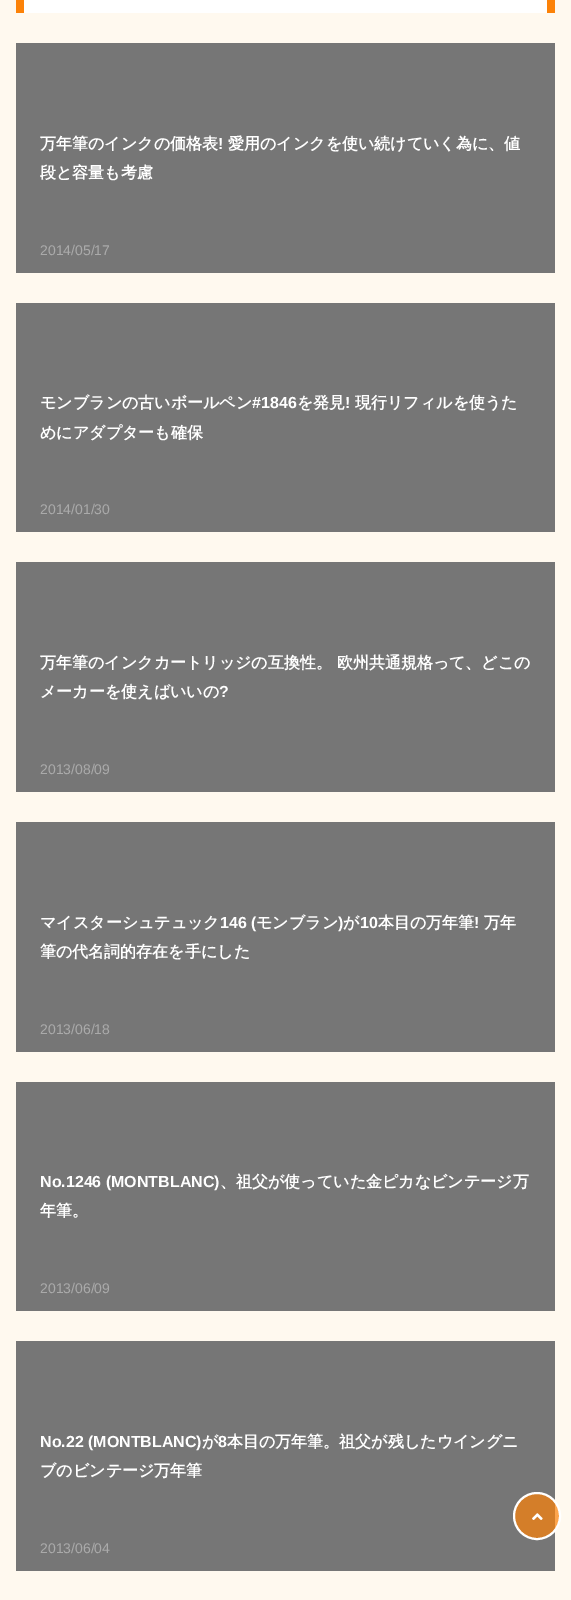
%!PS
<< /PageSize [571 1600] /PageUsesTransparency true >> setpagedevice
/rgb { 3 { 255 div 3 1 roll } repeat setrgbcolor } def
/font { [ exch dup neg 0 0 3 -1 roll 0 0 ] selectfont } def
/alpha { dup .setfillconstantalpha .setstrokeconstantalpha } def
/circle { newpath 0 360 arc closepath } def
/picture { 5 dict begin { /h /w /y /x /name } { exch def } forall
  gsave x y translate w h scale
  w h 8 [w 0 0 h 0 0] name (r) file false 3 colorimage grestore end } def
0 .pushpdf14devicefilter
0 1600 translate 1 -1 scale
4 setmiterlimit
255 249 239 rgb
0 0 571 1600 rectfill
[
  [24 0 523 13 255 255 255]
  [547 0 8 13 252 130 8]
  [16 0 8 13 252 130 8]
  [16 43 539 230 118 118 118]
  [16 303 539 229 118 118 118]
  [16 562 539 230 118 118 118]
  [16 822 539 230 118 118 118]
  [16 1082 539 229 118 118 118]
  [16 1341 539 230 118 118 118]
] { aload pop rgb rectfill } forall
0.7 alpha
252 130 8 rgb
537 1516 23 circle fill
1 alpha
255 255 255 rgb
2 setlinewidth
537 1516 23 circle stroke
(img/1.rgb) 532 1513 11 7 picture
/WenQuanYiZenHei-Bold 16 font
40 149 moveto (万年筆のインクの価格表) show
/LiberationSans-Bold 16 font
218 149 moveto (!) show
/WenQuanYiZenHei-Bold 16 font
228 149 moveto (愛用のインクを使い続けていく為に、値) show
40 178 moveto (段と容量も考慮) show
/LiberationSans-Regular 14 font
170 170 170 rgb
40 255 moveto (2014/05/17) show
/WenQuanYiZenHei-Bold 16 font
255 255 255 rgb
40 408 moveto (モンブランの古いボールペン) show
/LiberationSans-Bold 16 font
252 408 moveto (#1846) show
/WenQuanYiZenHei-Bold 16 font
297 408 moveto (を発見) show
/LiberationSans-Bold 16 font
345 408 moveto (!) show
/WenQuanYiZenHei-Bold 16 font
355 408 moveto (現行リフィルを使うた) show
40 438 moveto (めにアダプターも確保) show
/LiberationSans-Regular 14 font
170 170 170 rgb
40 514 moveto (2014/01/30) show
/WenQuanYiZenHei-Bold 16 font
255 255 255 rgb
40 668 moveto (万年筆のインクカートリッジの互換性。 欧州共通規格って、どこの) show
40 697 moveto (メーカーを使えばいいの) show
/LiberationSans-Bold 16 font
219 697 moveto (?) show
/LiberationSans-Regular 14 font
170 170 170 rgb
40 774 moveto (2013/08/09) show
/WenQuanYiZenHei-Bold 16 font
255 255 255 rgb
40 928 moveto (マイスターシュテュック) show
/LiberationSans-Bold 16 font
220 928 moveto (146 \() show
/WenQuanYiZenHei-Bold 16 font
256 928 moveto (モンブラン) show
/LiberationSans-Bold 16 font
338 928 moveto (\)) show
/WenQuanYiZenHei-Bold 16 font
343 928 moveto (が) show
/LiberationSans-Bold 16 font
360 928 moveto (10) show
/WenQuanYiZenHei-Bold 16 font
378 928 moveto (本目の万年筆) show
/LiberationSans-Bold 16 font
474 928 moveto (!) show
/WenQuanYiZenHei-Bold 16 font
484 928 moveto (万年) show
40 957 moveto (筆の代名詞的存在を手にした) show
/LiberationSans-Regular 14 font
170 170 170 rgb
40 1034 moveto (2013/06/18) show
/LiberationSans-Bold 16 font
255 255 255 rgb
40 1187 moveto (No.1246 \(MONTBLANC\)) show
/WenQuanYiZenHei-Bold 16 font
220 1187 moveto (、祖父が使っていた金ピカなビンテージ万) show
40 1216 moveto (年筆。) show
/LiberationSans-Regular 14 font
170 170 170 rgb
40 1293 moveto (2013/06/09) show
/LiberationSans-Bold 16 font
255 255 255 rgb
40 1447 moveto (No.22 \(MONTBLANC\)) show
/WenQuanYiZenHei-Bold 16 font
202 1447 moveto (が) show
/LiberationSans-Bold 16 font
218 1447 moveto (8) show
/WenQuanYiZenHei-Bold 16 font
227 1447 moveto (本目の万年筆。祖父が残したウイングニ) show
40 1476 moveto (ブのビンテージ万年筆) show
/LiberationSans-Regular 14 font
170 170 170 rgb
40 1553 moveto (2013/06/04) show
.poppdf14devicefilter showpage
